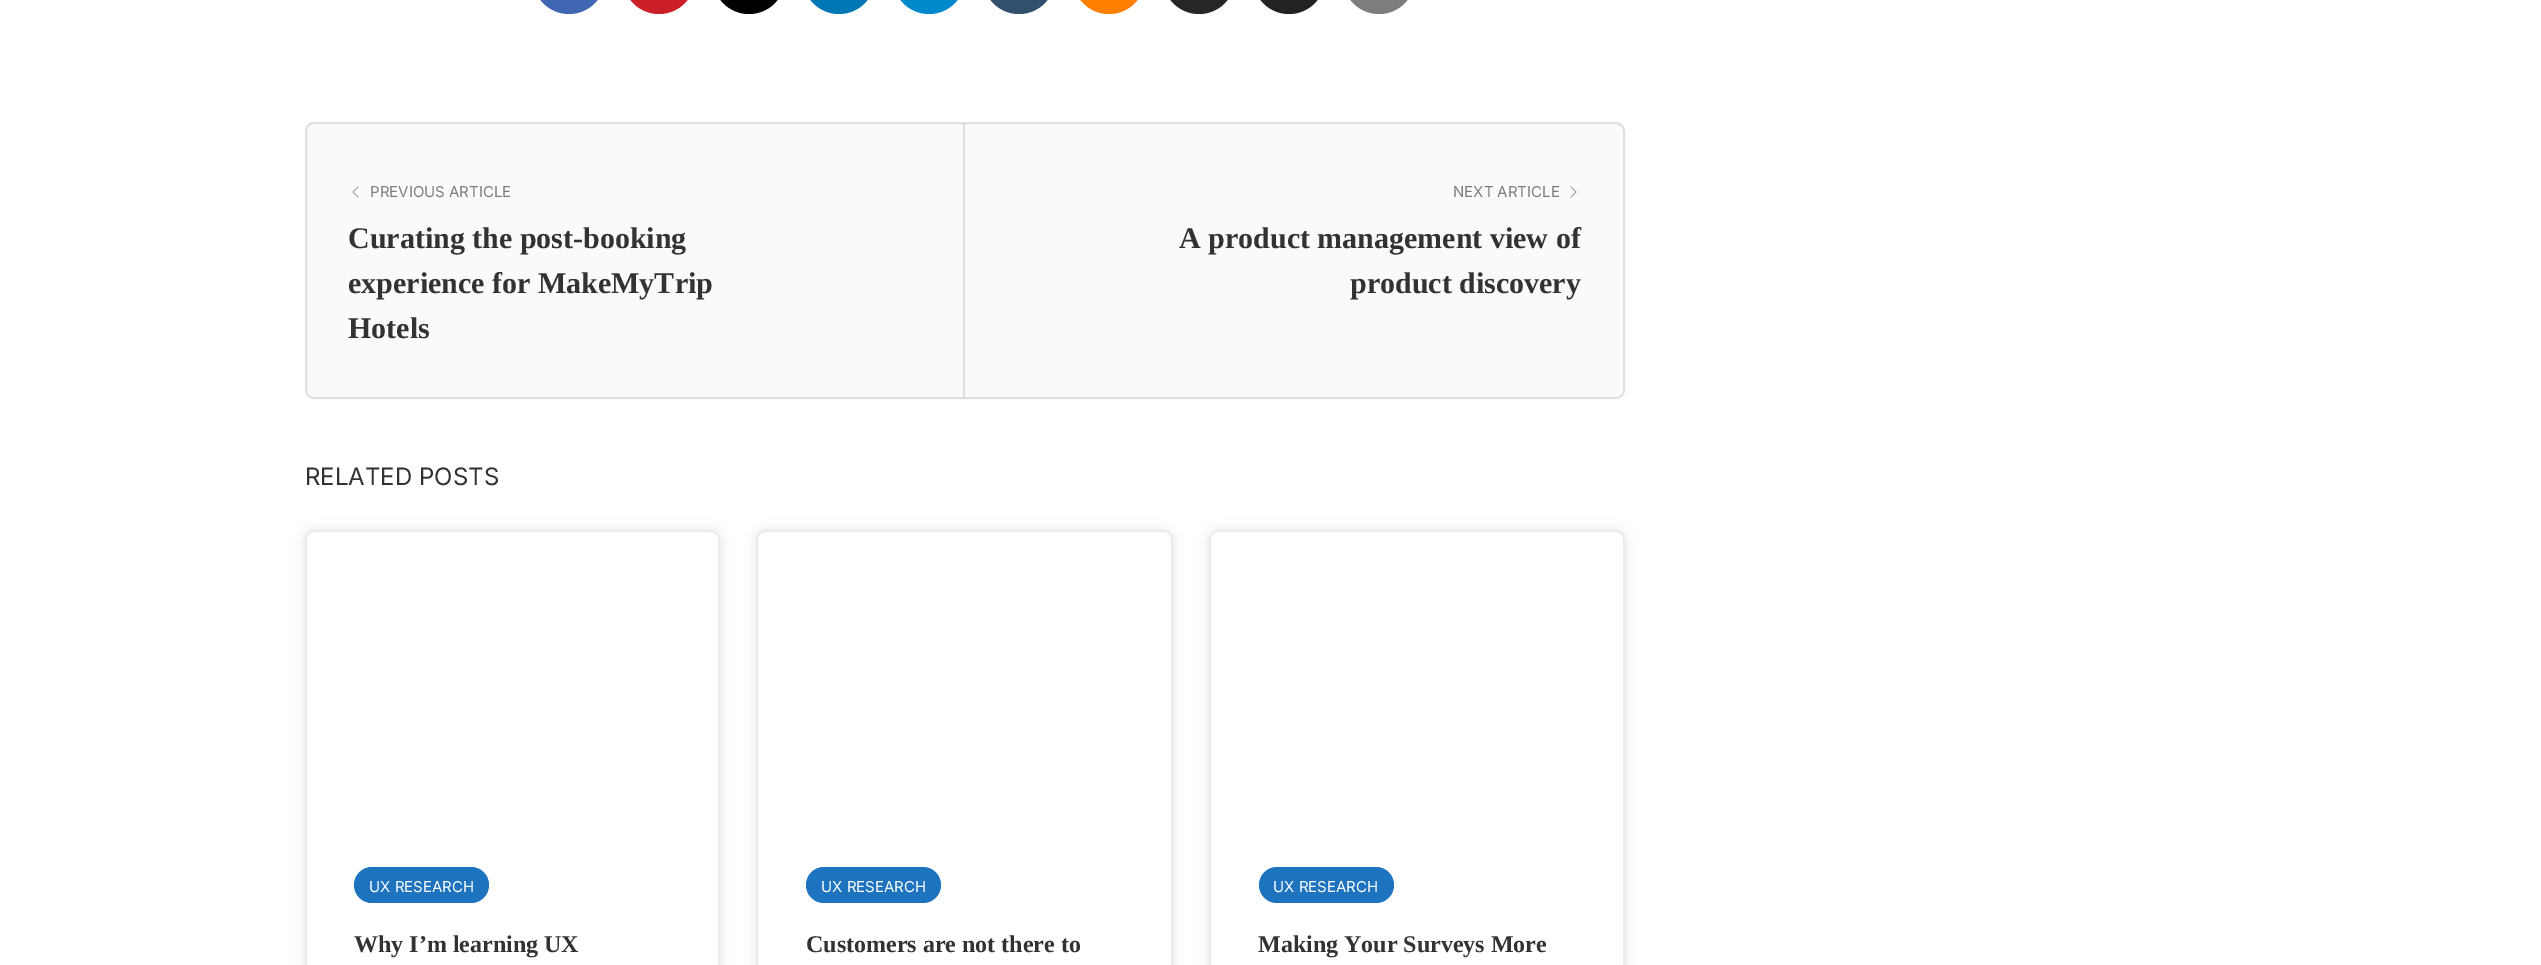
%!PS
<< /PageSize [2541 965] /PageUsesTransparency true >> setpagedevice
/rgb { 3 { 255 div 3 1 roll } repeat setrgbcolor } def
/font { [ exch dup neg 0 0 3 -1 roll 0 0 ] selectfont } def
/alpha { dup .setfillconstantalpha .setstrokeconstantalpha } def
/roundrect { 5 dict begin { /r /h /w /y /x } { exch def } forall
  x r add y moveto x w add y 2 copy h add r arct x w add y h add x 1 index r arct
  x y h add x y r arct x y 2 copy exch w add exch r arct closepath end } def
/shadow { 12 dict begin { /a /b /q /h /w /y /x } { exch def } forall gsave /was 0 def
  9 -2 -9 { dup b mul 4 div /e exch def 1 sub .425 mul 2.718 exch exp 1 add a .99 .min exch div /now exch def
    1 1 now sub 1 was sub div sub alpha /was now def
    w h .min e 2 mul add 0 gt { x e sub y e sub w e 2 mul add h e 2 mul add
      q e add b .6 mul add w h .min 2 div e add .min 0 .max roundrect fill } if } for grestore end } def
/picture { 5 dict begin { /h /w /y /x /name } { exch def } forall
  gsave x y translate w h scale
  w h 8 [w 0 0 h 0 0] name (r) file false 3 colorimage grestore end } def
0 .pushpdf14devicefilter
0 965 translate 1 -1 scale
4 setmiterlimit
255 255 255 rgb
0 0 2541 965 rectfill
66 103 178 rgb
533 -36 72 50 36 roundrect fill
203 32 39 rgb
623 -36 72 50 36 roundrect fill
0 0 0 rgb
713 -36 72 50 36 roundrect fill
0 119 181 rgb
803 -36 72 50 36 roundrect fill
0 136 204 rgb
893 -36 72 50 36 roundrect fill
50 80 109 rgb
983 -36 72 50 36 roundrect fill
255 128 0 rgb
1073 -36 72 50 36 roundrect fill
38 38 38 rgb
1163 -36 72 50 36 roundrect fill
34 34 34 rgb
1253 -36 72 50 36 roundrect fill
125 125 125 rgb
1343 -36 72 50 36 roundrect fill
250 250 250 rgb
306 123 1318 275 8 roundrect gsave fill grestore
225 225 225 rgb
2 setlinewidth
stroke
0.1 alpha
0 0 0 rgb
963 123 2 275 rectfill
1 alpha
(img/1.rgb) 352 186 7 12 picture
(img/2.rgb) 1570 186 7 12 picture
gsave
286 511 moveto 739 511 lineto 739 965 lineto 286 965 lineto closepath 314 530 moveto 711 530 lineto 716 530 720 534 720 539 curveto 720 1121 lineto 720 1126 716 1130 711 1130 curveto 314 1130 lineto 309 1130 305 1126 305 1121 curveto 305 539 lineto 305 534 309 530 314 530 curveto closepath eoclip newpath
17 17 26 rgb
305 530 415 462 9 6 0.1 shadow
grestore
236 236 236 rgb
306 531 413 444 8 roundrect stroke
30 115 190 rgb
354 867 135 36 18 roundrect fill
gsave
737 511 moveto 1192 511 lineto 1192 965 lineto 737 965 lineto closepath 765 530 moveto 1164 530 lineto 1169 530 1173 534 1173 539 curveto 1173 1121 lineto 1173 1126 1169 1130 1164 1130 curveto 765 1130 lineto 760 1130 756 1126 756 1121 curveto 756 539 lineto 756 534 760 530 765 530 curveto closepath eoclip newpath
17 17 26 rgb
756 530 417 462 9 6 0.1 shadow
grestore
236 236 236 rgb
757 531 415 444 8 roundrect stroke
30 115 190 rgb
806 867 135 36 18 roundrect fill
17 17 26 rgb
1209 530 416 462 9 6 0.1 shadow
255 255 255 rgb
1209 530 416 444 9 roundrect fill
0.07 alpha
0 0 0 rgb
1210 531 414 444 8 roundrect stroke
1 alpha
30 115 190 rgb
1259 867 135 36 18 roundrect fill
/Inter-Regular 15 font
125 125 125 rgb
370 197 moveto (PREVIOUS ARTICLE) show
/LiberationSerif-Bold 30 font
50 50 50 rgb
[
  [(Curating the post-booking) 348 248]
  [(experience for MakeMyTrip) 348 293]
  [(Hotels) 348 338]
] { aload pop moveto show } forall
/Inter-Regular 15 font
125 125 125 rgb
1453 197 moveto (NEXT ARTICLE) show
/LiberationSerif-Bold 30 font
50 50 50 rgb
1179 248 moveto (A product management view of) show
1350 293 moveto (product discovery) show
/Inter-Regular 24 font
305 485 moveto (RELATED POSTS) show
/Inter-Regular 15 font
255 255 255 rgb
369 892 moveto (UX RESEARCH) show
/LiberationSerif-Bold 24 font
50 50 50 rgb
354 952 moveto (Why I’m learning UX) show
/Inter-Regular 15 font
255 255 255 rgb
821 892 moveto (UX RESEARCH) show
/LiberationSerif-Bold 24 font
50 50 50 rgb
806 952 moveto (Customers are not there to) show
/Inter-Regular 15 font
255 255 255 rgb
1273 892 moveto (UX RESEARCH) show
/LiberationSerif-Bold 24 font
50 50 50 rgb
1258 952 moveto (Making Your Surveys More) show
.poppdf14devicefilter showpage
